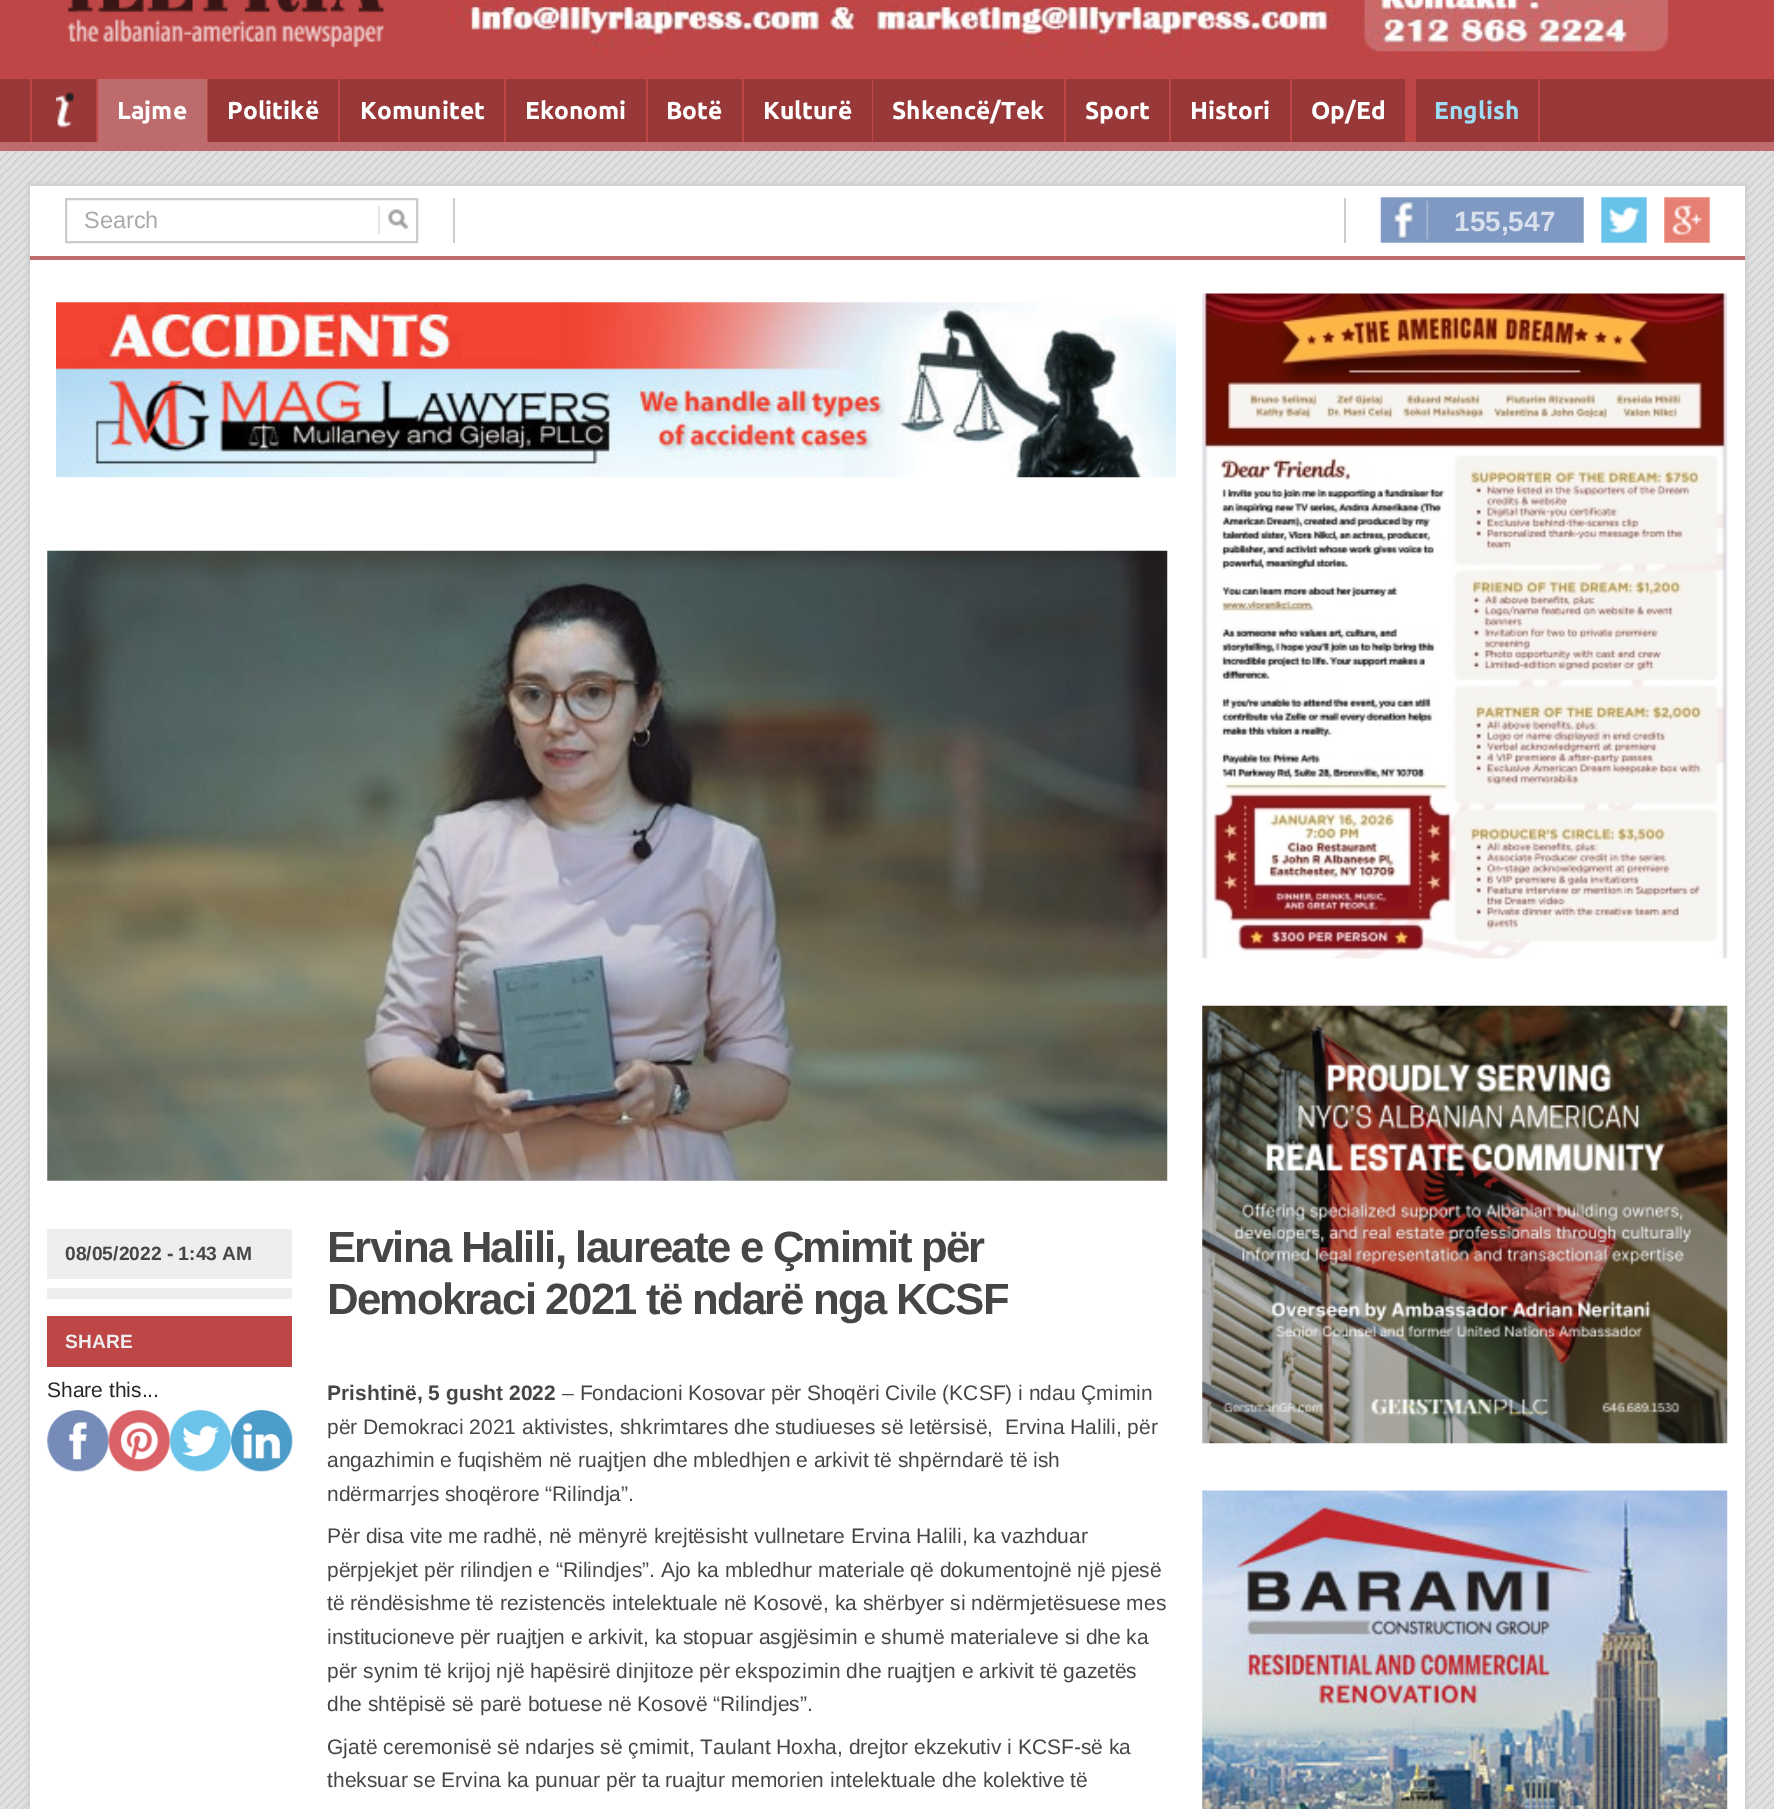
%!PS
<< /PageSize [1774 1809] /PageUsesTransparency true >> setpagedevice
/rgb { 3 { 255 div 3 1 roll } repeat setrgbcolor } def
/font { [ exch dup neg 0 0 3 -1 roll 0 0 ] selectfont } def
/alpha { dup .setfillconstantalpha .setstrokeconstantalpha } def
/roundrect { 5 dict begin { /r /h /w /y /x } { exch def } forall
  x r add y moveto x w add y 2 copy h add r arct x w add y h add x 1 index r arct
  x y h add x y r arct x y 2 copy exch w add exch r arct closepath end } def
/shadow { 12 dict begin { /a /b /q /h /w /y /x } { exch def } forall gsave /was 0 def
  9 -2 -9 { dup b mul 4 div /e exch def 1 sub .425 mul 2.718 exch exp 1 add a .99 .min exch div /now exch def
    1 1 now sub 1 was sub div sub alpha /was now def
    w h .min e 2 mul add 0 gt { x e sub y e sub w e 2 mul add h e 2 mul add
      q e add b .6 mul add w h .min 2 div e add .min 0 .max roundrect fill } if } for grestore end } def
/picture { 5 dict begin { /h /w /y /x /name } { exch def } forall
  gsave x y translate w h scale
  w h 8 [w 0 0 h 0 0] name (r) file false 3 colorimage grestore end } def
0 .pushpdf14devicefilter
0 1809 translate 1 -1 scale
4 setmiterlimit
255 255 255 rgb
0 0 1774 1809 rectfill
(img/1.rgb) 0 151 1774 1658 picture
191 70 70 rgb
0 0 1774 79 rectfill
(img/2.rgb) 67 0 317 48 picture
(img/3.rgb) 448 0 1221 55 picture
152 56 56 rgb
0 79 1774 63 rectfill
189 107 108 rgb
0 142 1774 9 rectfill
(img/4.rgb) 56 92 18 36 picture
[
  [96 79 2 63 191 70 70]
  [30 79 2 63 191 70 70]
  [98 79 109 63 189 107 108]
  [207 79 1 63 191 70 70]
  [338 79 2 63 191 70 70]
  [504 79 2 63 191 70 70]
  [646 79 2 63 191 70 70]
  [742 79 2 63 191 70 70]
  [872 79 1 63 191 70 70]
  [1064 79 2 63 191 70 70]
  [1169 79 2 63 191 70 70]
  [1290 79 2 63 191 70 70]
  [1405 79 11 63 191 70 70]
  [1538 79 2 63 191 70 70]
] { aload pop rgb rectfill } forall
204 204 204 rgb
28 184 1719 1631 0 2 1 shadow
255 255 255 rgb
30 186 1715 1623 rectfill
189 107 108 rgb
30 256 1715 4 rectfill
204 204 204 rgb
2 setlinewidth
66 199 351 43 rectstroke
(img/5.rgb) 377 206 32 29 picture
1344 198 2 45 rectfill
453 198 2 45 rectfill
(img/6.rgb) 1380 197 204 46 picture
(img/7.rgb) 1601 197 46 46 picture
(img/8.rgb) 1664 197 46 46 picture
(img/9.rgb) 56 302 1120 176 picture
250 250 250 rgb
47 551 1120 630 rectfill
(img/10.rgb) 47 550 1121 631 picture
[
  [47 1229 245 50 238 238 238]
  [47 1288 245 11 238 238 238]
  [47 1316 245 51 191 70 70]
] { aload pop rgb rectfill } forall
(img/11.rgb) 47 1410 62 62 picture
(img/12.rgb) 108 1410 62 62 picture
(img/13.rgb) 169 1410 62 62 picture
(img/14.rgb) 231 1410 62 62 picture
(img/15.rgb) 1202 293 526 666 picture
(img/16.rgb) 1202 1005 526 439 picture
(img/17.rgb) 1202 1490 526 319 picture
/Ubuntu-Bold 24.5 font
255 255 255 rgb
[
  [(Lajme) 117 119]
  [(Politikë) 227 119]
  [(Komunitet) 360 119]
  [(Ekonomi) 525 119]
  [(Botë) 666 119]
  [(Kulturë) 763 119]
  [(Shkencë/Tek) 892 119]
  [(Sport) 1085 119]
  [(Histori) 1190 119]
  [(Op/Ed) 1311 119]
] { aload pop moveto show } forall
157 220 244 rgb
1434 119 moveto (English) show
/LiberationSans-Regular 23.5 font
170 170 170 rgb
84 228 moveto (Search) show
/LiberationSans-Bold 28 font
217 224 237 rgb
1454 231 moveto (155,547) show
/LiberationSans-Bold 19.25 font
70 70 71 rgb
65 1260 moveto (08/05/2022 - 1:43 AM) show
238 238 238 rgb
65 1348 moveto (SHARE) show
/LiberationSans-Regular 21 font
39 39 39 rgb
47 1397 moveto (Share this...) show
/LiberationSans-Bold 43.75 font
70 70 71 rgb
327 1262 moveto -1.75 0 (Ervina Halili, laureate e Çmimit për) ashow
327 1314 moveto -1.75 0 (Demokraci 2021 të ndarë nga KCSF) ashow
/LiberationSans-Bold 21 font
327 1400 moveto (Prishtinë, 5 gusht 2022) show
/LiberationSans-Regular 21 font
[
  [(– Fondacioni Kosovar për Shoqëri Civile \(KCSF\) i ndau Çmimin) 562 1400]
  [(për Demokraci 2021 aktivistes, shkrimtares dhe studiueses së letërsisë,  Ervina Halili, për) 327 1434]
  [(angazhimin e fuqishëm në ruajtjen dhe mbledhjen e arkivit të shpërndarë të ish) 327 1467]
  [(ndërmarrjes shoqërore “Rilindja”.) 327 1501]
  [(Për disa vite me radhë, në mënyrë krejtësisht vullnetare Ervina Halili, ka vazhduar) 327 1543]
  [(përpjekjet për rilindjen e “Rilindjes”. Ajo ka mbledhur materiale që dokumentojnë një pjesë) 327 1577]
  [(të rëndësishme të rezistencës intelektuale në Kosovë, ka shërbyer si ndërmjetësuese mes) 327 1610]
  [(institucioneve për ruajtjen e arkivit, ka stopuar asgjësimin e shumë materialeve si dhe ka) 327 1644]
  [(për synim të krijoj një hapësirë dinjitoze për ekspozimin dhe ruajtjen e arkivit të gazetës) 327 1678]
  [(dhe shtëpisë së parë botuese në Kosovë “Rilindjes”.) 327 1711]
  [(Gjatë ceremonisë së ndarjes së çmimit, Taulant Hoxha, drejtor ekzekutiv i KCSF-së ka) 327 1754]
  [(theksuar se Ervina ka punuar për ta ruajtur memorien intelektuale dhe kolektive të) 327 1787]
] { aload pop moveto show } forall
.poppdf14devicefilter showpage
